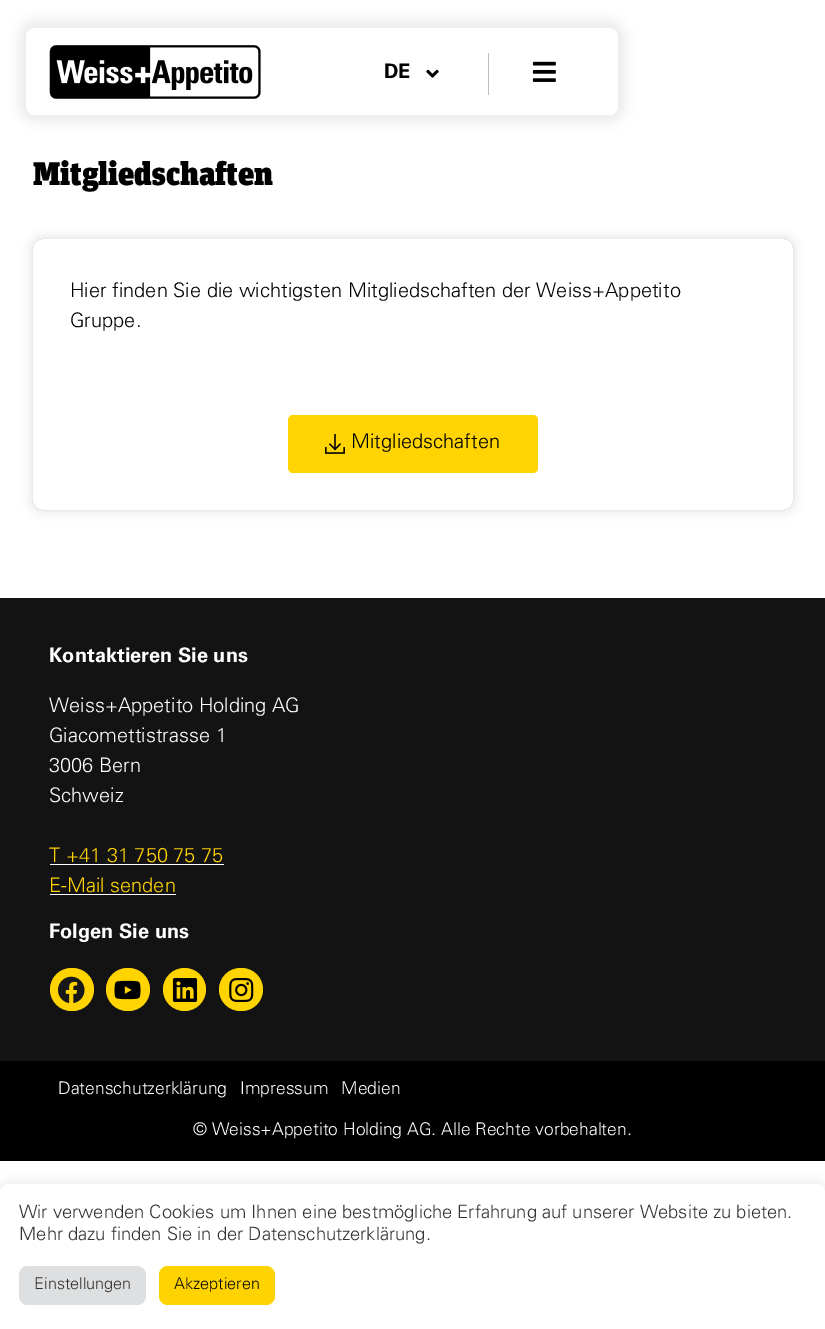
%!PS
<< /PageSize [825 1329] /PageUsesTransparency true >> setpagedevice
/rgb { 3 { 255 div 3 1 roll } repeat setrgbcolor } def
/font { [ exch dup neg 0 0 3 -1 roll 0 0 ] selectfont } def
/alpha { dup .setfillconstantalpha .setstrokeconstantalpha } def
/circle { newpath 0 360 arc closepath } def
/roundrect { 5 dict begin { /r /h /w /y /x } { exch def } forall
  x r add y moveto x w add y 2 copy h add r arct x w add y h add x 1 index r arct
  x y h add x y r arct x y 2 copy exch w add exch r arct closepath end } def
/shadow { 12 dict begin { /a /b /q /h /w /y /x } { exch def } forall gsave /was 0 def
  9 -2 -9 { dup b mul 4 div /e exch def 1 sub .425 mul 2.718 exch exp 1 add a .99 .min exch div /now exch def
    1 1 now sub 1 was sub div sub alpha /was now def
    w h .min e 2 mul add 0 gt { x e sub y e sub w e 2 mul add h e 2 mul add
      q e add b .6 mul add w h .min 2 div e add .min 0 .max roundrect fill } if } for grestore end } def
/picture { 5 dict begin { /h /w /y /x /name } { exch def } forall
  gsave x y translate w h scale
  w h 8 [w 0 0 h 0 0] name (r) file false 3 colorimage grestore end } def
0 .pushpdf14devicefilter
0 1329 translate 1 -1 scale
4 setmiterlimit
255 255 255 rgb
0 0 825 1329 rectfill
0 0 0 rgb
20 21 604 100 15 6 0.08 shadow
255 255 255 rgb
26 28 592 87 9 roundrect fill
(img/1.rgb) 49 45 212 54 picture
(img/2.rgb) 426 69 13 9 picture
189 189 189 rgb
488 53 1 42 rectfill
(img/3.rgb) 532 61 24 21 picture
gsave
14 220 moveto 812 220 lineto 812 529 lineto 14 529 lineto closepath 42 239 moveto 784 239 lineto 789 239 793 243 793 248 curveto 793 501 lineto 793 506 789 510 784 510 curveto 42 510 lineto 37 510 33 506 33 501 curveto 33 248 lineto 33 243 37 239 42 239 curveto closepath eoclip newpath
0 0 0 rgb
33 239 760 271 9 6 0.16 shadow
grestore
255 212 1 rgb
288 415 250 58 5 roundrect fill
(img/4.rgb) 325 434 20 20 picture
[
  [0 598 825 463 19 19 19]
  [50 864 174 1 255 255 255]
  [50 894 126 1 255 255 255]
] { aload pop rgb rectfill } forall
255 212 1 rgb
50 968 44 43 21.5 roundrect fill
(img/5.rgb) 58 976 27 28 picture
106 968 44 43 21.5 roundrect fill
(img/6.rgb) 114 980 27 20 picture
184.5 989.5 21.5 circle fill
(img/7.rgb) 172 978 26 24 picture
219 968 44 43 21.5 roundrect fill
(img/8.rgb) 229 977 25 25 picture
0 0 0 rgb
0 1061 825 100 rectfill
172 171 171 rgb
0 1183 825 146 9 6 0.3 shadow
255 255 255 rgb
9 1184 moveto 816 1184 lineto 821 1184 825 1188 825 1193 curveto 825 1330 lineto 0 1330 lineto 0 1193 lineto 0 1188 4 1184 9 1184 curveto closepath fill
222 223 224 rgb
19 1266 127 39 9 roundrect fill
255 211 1 rgb
159 1266 116 39 9 roundrect fill
/Univers-Bold 20 font
0 0 0 rgb
384 78 moveto (DE) show
/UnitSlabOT-Black 32.5 font
33 185 moveto (Mitgliedschaften) show
/Univers-Light 20 font
[
  [(Hier finden Sie die wichtigsten Mitgliedschaften der Weiss+Appetito) 70 297]
  [(Gruppe.) 70 327]
  [(Mitgliedschaften) 351 448]
] { aload pop moveto show } forall
/Univers-Bold 20 font
255 255 255 rgb
49 662 moveto (Kontaktieren Sie uns) show
/Univers-Light 20 font
[
  [(Weiss+Appetito Holding AG) 49 712]
  [(Giacomettistrasse 1) 49 742]
  [(3006 Bern) 49 772]
  [(Schweiz) 49 802]
] { aload pop moveto show } forall
255 212 1 rgb
49 862 moveto (T +41 31 750 75 75) show
49 892 moveto (E-Mail senden) show
/Univers-Bold 20 font
255 255 255 rgb
49 938 moveto (Folgen Sie uns) show
/Univers-Light 17.5 font
[
  [(Datenschutzerklärung) 58 1094]
  [(Impressum) 240 1094]
  [(Medien) 341 1094]
  [(© Weiss+Appetito Holding AG. Alle Rechte vorbehalten.) 193 1135]
] { aload pop moveto show } forall
/Univers-Light 18.35 font
51 51 51 rgb
19 1218 moveto (Wir verwenden Cookies um Ihnen eine bestmögliche Erfahrung auf unserer Website zu bieten.) show
19 1240 moveto (Mehr dazu finden Sie in der Datenschutzerklärung.) show
/Univers-Light 16.25 font
34 1289 moveto (Einstellungen) show
10 10 10 rgb
174 1289 moveto (Akzeptieren) show
.poppdf14devicefilter showpage
